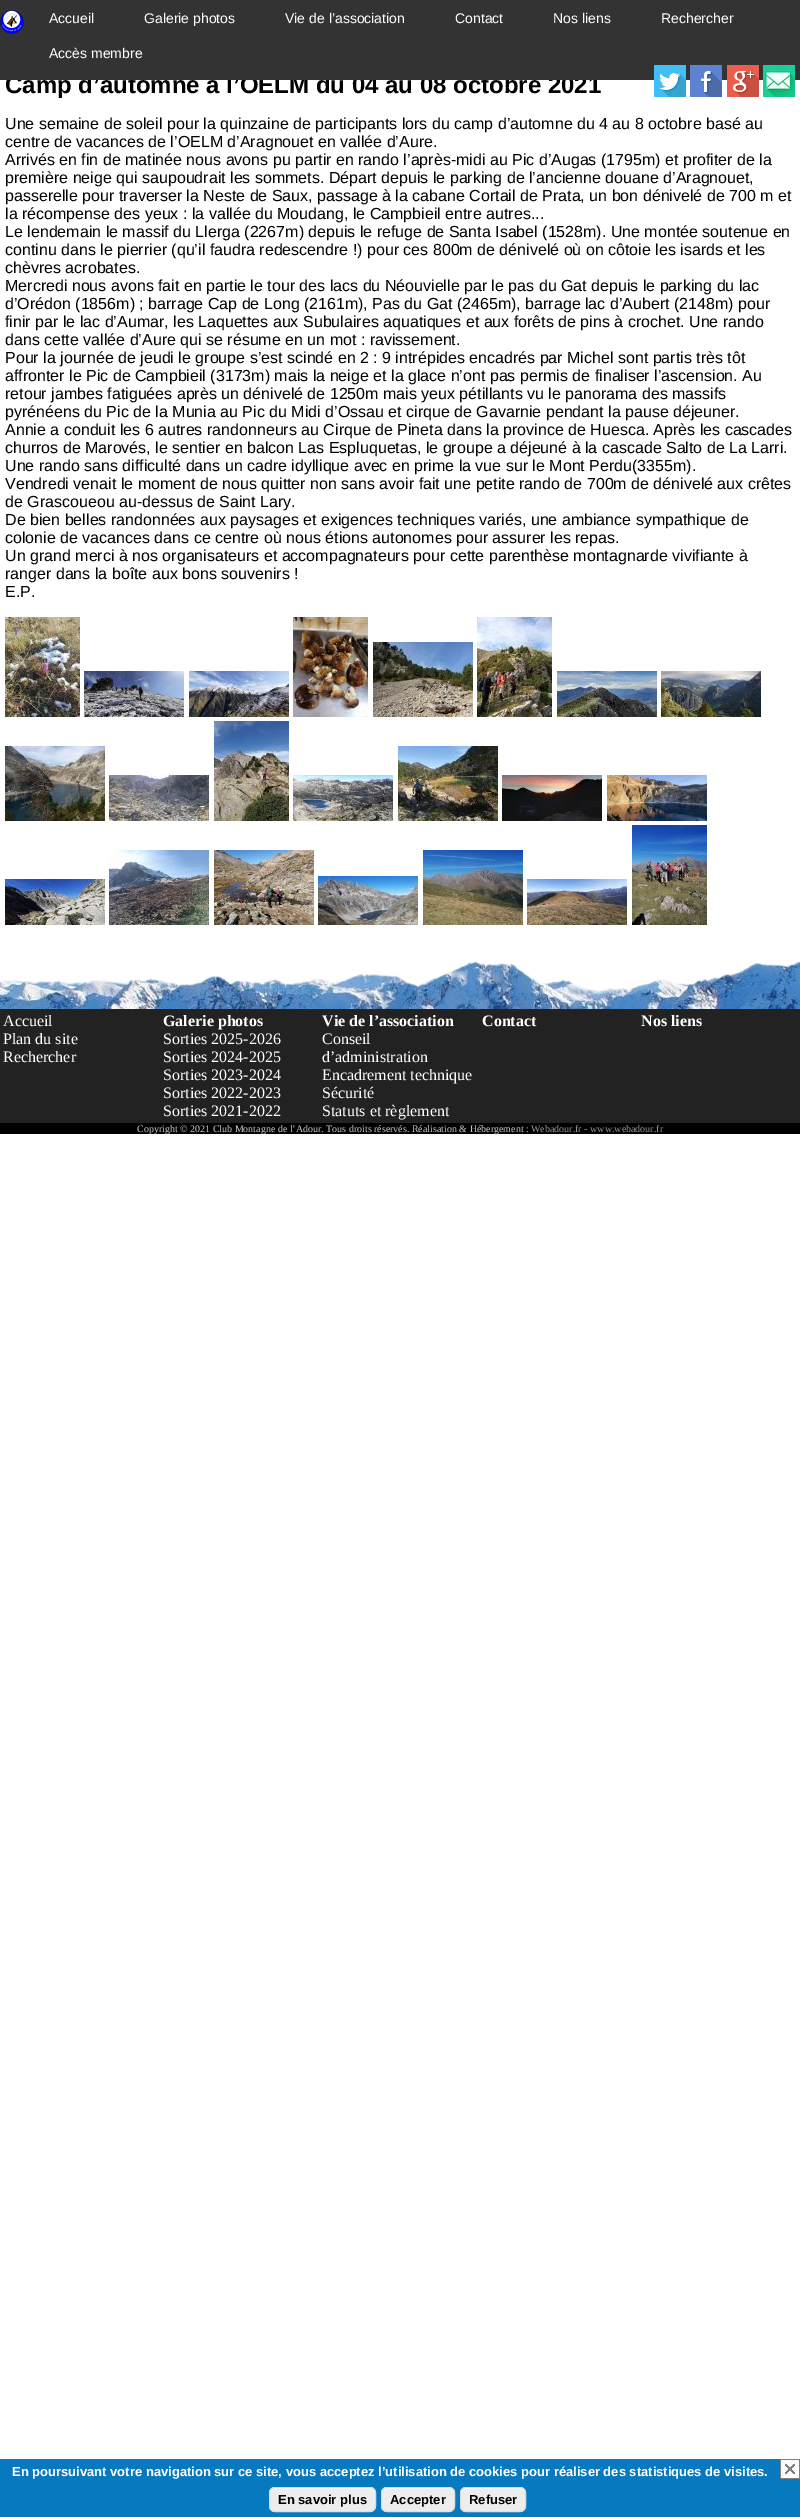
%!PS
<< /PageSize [800 2517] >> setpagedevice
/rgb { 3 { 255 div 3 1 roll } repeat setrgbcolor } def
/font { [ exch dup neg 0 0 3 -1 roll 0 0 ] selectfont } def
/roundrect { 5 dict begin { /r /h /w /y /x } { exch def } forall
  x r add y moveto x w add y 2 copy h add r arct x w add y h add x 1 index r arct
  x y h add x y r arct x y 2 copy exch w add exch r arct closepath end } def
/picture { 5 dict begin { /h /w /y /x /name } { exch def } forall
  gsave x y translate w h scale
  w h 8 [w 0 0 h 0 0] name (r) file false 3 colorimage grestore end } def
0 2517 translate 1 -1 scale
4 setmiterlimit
255 255 255 rgb
0 0 800 2517 rectfill
(img/2.rgb) 0 961 800 48 picture
(img/7.rgb) 5 617 75 100 picture
(img/8.rgb) 84 671 100 46 picture
(img/9.rgb) 189 671 100 46 picture
(img/10.rgb) 293 617 75 100 picture
(img/11.rgb) 373 642 100 75 picture
(img/12.rgb) 477 617 75 100 picture
(img/13.rgb) 557 671 100 46 picture
(img/14.rgb) 661 671 100 46 picture
(img/15.rgb) 5 746 100 75 picture
(img/16.rgb) 109 775 100 46 picture
(img/17.rgb) 214 721 75 100 picture
(img/18.rgb) 293 775 100 46 picture
(img/19.rgb) 398 746 100 75 picture
(img/20.rgb) 502 775 100 46 picture
(img/21.rgb) 607 775 100 46 picture
(img/22.rgb) 5 879 100 46 picture
(img/23.rgb) 109 850 100 75 picture
(img/24.rgb) 214 850 100 75 picture
(img/25.rgb) 318 876 100 49 picture
(img/26.rgb) 423 850 100 75 picture
(img/27.rgb) 527 879 100 46 picture
(img/28.rgb) 632 825 75 100 picture
[
  [0 1009 800 114 34 34 34]
  [0 1123 800 11 0 0 0]
  [0 2459 800 58 7 121 191]
] { aload pop rgb rectfill } forall
(img/29.rgb) 780 2459 20 20 picture
237 237 237 rgb
269 2487 107 25 6 roundrect fill
255 255 255 rgb
275 2489 moveto 370 2489 lineto 373 2489 375 2491 375 2494 curveto 375 2484 359 2488 354 2488 curveto 291 2488 lineto 286 2488 270 2484 270 2494 curveto 270 2491 272 2489 275 2489 curveto closepath fill
220 220 220 rgb
269.5 2487.5 106 24 5.5 roundrect stroke
237 237 237 rgb
381 2487 74 25 6 roundrect fill
255 255 255 rgb
387 2489 moveto 449 2489 lineto 452 2489 454 2491 454 2494 curveto 454 2486 444 2488 439 2488 curveto 397 2488 lineto 392 2488 382 2486 382 2494 curveto 382 2491 384 2489 387 2489 curveto closepath fill
220 220 220 rgb
381.5 2487.5 73 24 5.5 roundrect stroke
237 237 237 rgb
460 2487 66 25 6 roundrect fill
255 255 255 rgb
466 2489 moveto 520 2489 lineto 523 2489 525 2491 525 2494 curveto 525 2486 517 2488 511 2488 curveto 475 2488 lineto 469 2488 461 2486 461 2494 curveto 461 2491 463 2489 466 2489 curveto closepath fill
220 220 220 rgb
460.5 2487.5 65 24 5.5 roundrect stroke
/LiberationSans-Bold 24 font
0 0 0 rgb
5 93 moveto (Camp d’automne à l’OELM du 04 au 08 octobre 2021) show
51 51 51 rgb
0 0 800 80 rectfill
/LiberationSans-Regular 14 font
255 255 255 rgb
[
  [(Accès membre) 49 58]
  [(Rechercher) 661 23]
  [(Nos liens) 553 23]
  [(Contact) 455 23]
  [(Vie de l’association) 285 23]
  [(Galerie photos) 144 23]
  [(Accueil) 49 23]
] { aload pop moveto show } forall
(img/1.rgb) 0 10 24 24 picture
(img/3.rgb) 654 65 32 32 picture
(img/4.rgb) 690 65 32 32 picture
(img/5.rgb) 727 65 32 32 picture
(img/6.rgb) 763 65 32 32 picture
/LiberationSans-Regular 16 font
0 0 0 rgb
[
  [(Une semaine de soleil pour la quinzaine de participants lors du camp d’automne du 4 au 8 octobre basé au) 5 129]
  [(centre de vacances de l’OELM d’Aragnouet en vallée d’Aure.) 5 147]
  [(Arrivés en fin de matinée nous avons pu partir en rando l’après-midi au Pic d’Augas \(1795m\) et profiter de la) 5 165]
  [(première neige qui saupoudrait les sommets. Départ depuis le parking de l’ancienne douane d’Aragnouet,) 5 183]
  [(passerelle pour traverser la Neste de Saux, passage à la cabane Cortail de Prata, un bon dénivelé de 700 m et) 5 201]
  [(la récompense des yeux : la vallée du Moudang, le Campbieil entre autres...) 5 219]
  [(Le lendemain le massif du Llerga \(2267m\) depuis le refuge de Santa Isabel \(1528m\). Une montée soutenue en) 5 237]
  [(continu dans le pierrier \(qu’il faudra redescendre !\) pour ces 800m de dénivelé où on côtoie les isards et les) 5 255]
  [(chèvres acrobates.) 5 273]
  [(Mercredi nous avons fait en partie le tour des lacs du Néouvielle par le pas du Gat depuis le parking du lac) 5 291]
  [(d’Orédon \(1856m\) ; barrage Cap de Long \(2161m\), Pas du Gat \(2465m\), barrage lac d’Aubert \(2148m\) pour) 5 309]
  [(finir par le lac d’Aumar, les Laquettes aux Subulaires aquatiques et aux forêts de pins à crochet. Une rando) 5 327]
  [(dans cette vallée d’Aure qui se résume en un mot : ravissement.) 5 345]
  [(Pour la journée de jeudi le groupe s’est scindé en 2 : 9 intrépides encadrés par Michel sont partis très tôt) 5 363]
  [(affronter le Pic de Campbieil \(3173m\) mais la neige et la glace n’ont pas permis de finaliser l’ascension. Au) 5 381]
  [(retour jambes fatiguées après un dénivelé de 1250m mais yeux pétillants vu le panorama des massifs) 5 399]
  [(pyrénéens du Pic de la Munia au Pic du Midi d’Ossau et cirque de Gavarnie pendant la pause déjeuner.) 5 417]
  [(Annie a conduit les 6 autres randonneurs au Cirque de Pineta dans la province de Huesca. Après les cascades) 5 435]
  [(churros de Marovés, le sentier en balcon Las Espluquetas, le groupe a déjeuné à la cascade Salto de La Larri.) 5 453]
  [(Une rando sans difficulté dans un cadre idyllique avec en prime la vue sur le Mont Perdu\(3355m\).) 5 471]
  [(Vendredi venait le moment de nous quitter non sans avoir fait une petite rando de 700m de dénivelé aux crêtes) 5 489]
  [(de Grascoueou au-dessus de Saint Lary.) 5 507]
  [(De bien belles randonnées aux paysages et exigences techniques variés, une ambiance sympathique de) 5 525]
  [(colonie de vacances dans ce centre où nous étions autonomes pour assurer les repas.) 5 543]
  [(Un grand merci à nos organisateurs et accompagnateurs pour cette parenthèse montagnarde vivifiante à) 5 561]
  [(ranger dans la boîte aux bons souvenirs !) 5 579]
  [(E.P.) 5 597]
] { aload pop moveto show } forall
/LiberationSerif-Regular 16 font
255 255 255 rgb
[
  [(Accueil) 3 1026]
  [(Plan du site) 3 1044]
  [(Rechercher) 3 1062]
] { aload pop moveto show } forall
/LiberationSerif-Bold 16 font
163 1026 moveto (Galerie photos) show
/LiberationSerif-Regular 16 font
[
  [(Sorties 2025-2026) 163 1044]
  [(Sorties 2024-2025) 163 1062]
  [(Sorties 2023-2024) 163 1080]
  [(Sorties 2022-2023) 163 1098]
  [(Sorties 2021-2022) 163 1116]
] { aload pop moveto show } forall
/LiberationSerif-Bold 16 font
322 1026 moveto (Vie de l’association) show
/LiberationSerif-Regular 16 font
[
  [(Conseil) 322 1044]
  [(d’administration) 322 1062]
  [(Encadrement technique) 322 1080]
  [(Sécurité) 322 1098]
  [(Statuts et règlement) 322 1116]
] { aload pop moveto show } forall
/LiberationSerif-Bold 16 font
482 1026 moveto (Contact) show
641 1026 moveto (Nos liens) show
/LiberationSerif-Regular 10 font
204 204 204 rgb
137 1132 moveto (Copyright © 2021 Club Montagne de l’Adour. Tous droits réservés. Réalisation & Hébergement :) show
153 153 153 rgb
531 1132 moveto (Webadour.fr - www.webadour.fr) show
/LiberationSans-Bold 13 font
255 255 255 rgb
12 2476 moveto (En poursuivant votre navigation sur ce site, vous acceptez l’utilisation de cookies pour réaliser des statistiques de visites.) show
0 0 0 rgb
[
  [(En savoir plus) 278 2504]
  [(Accepter) 390 2504]
  [(Refuser) 469 2504]
] { aload pop moveto show } forall
showpage
